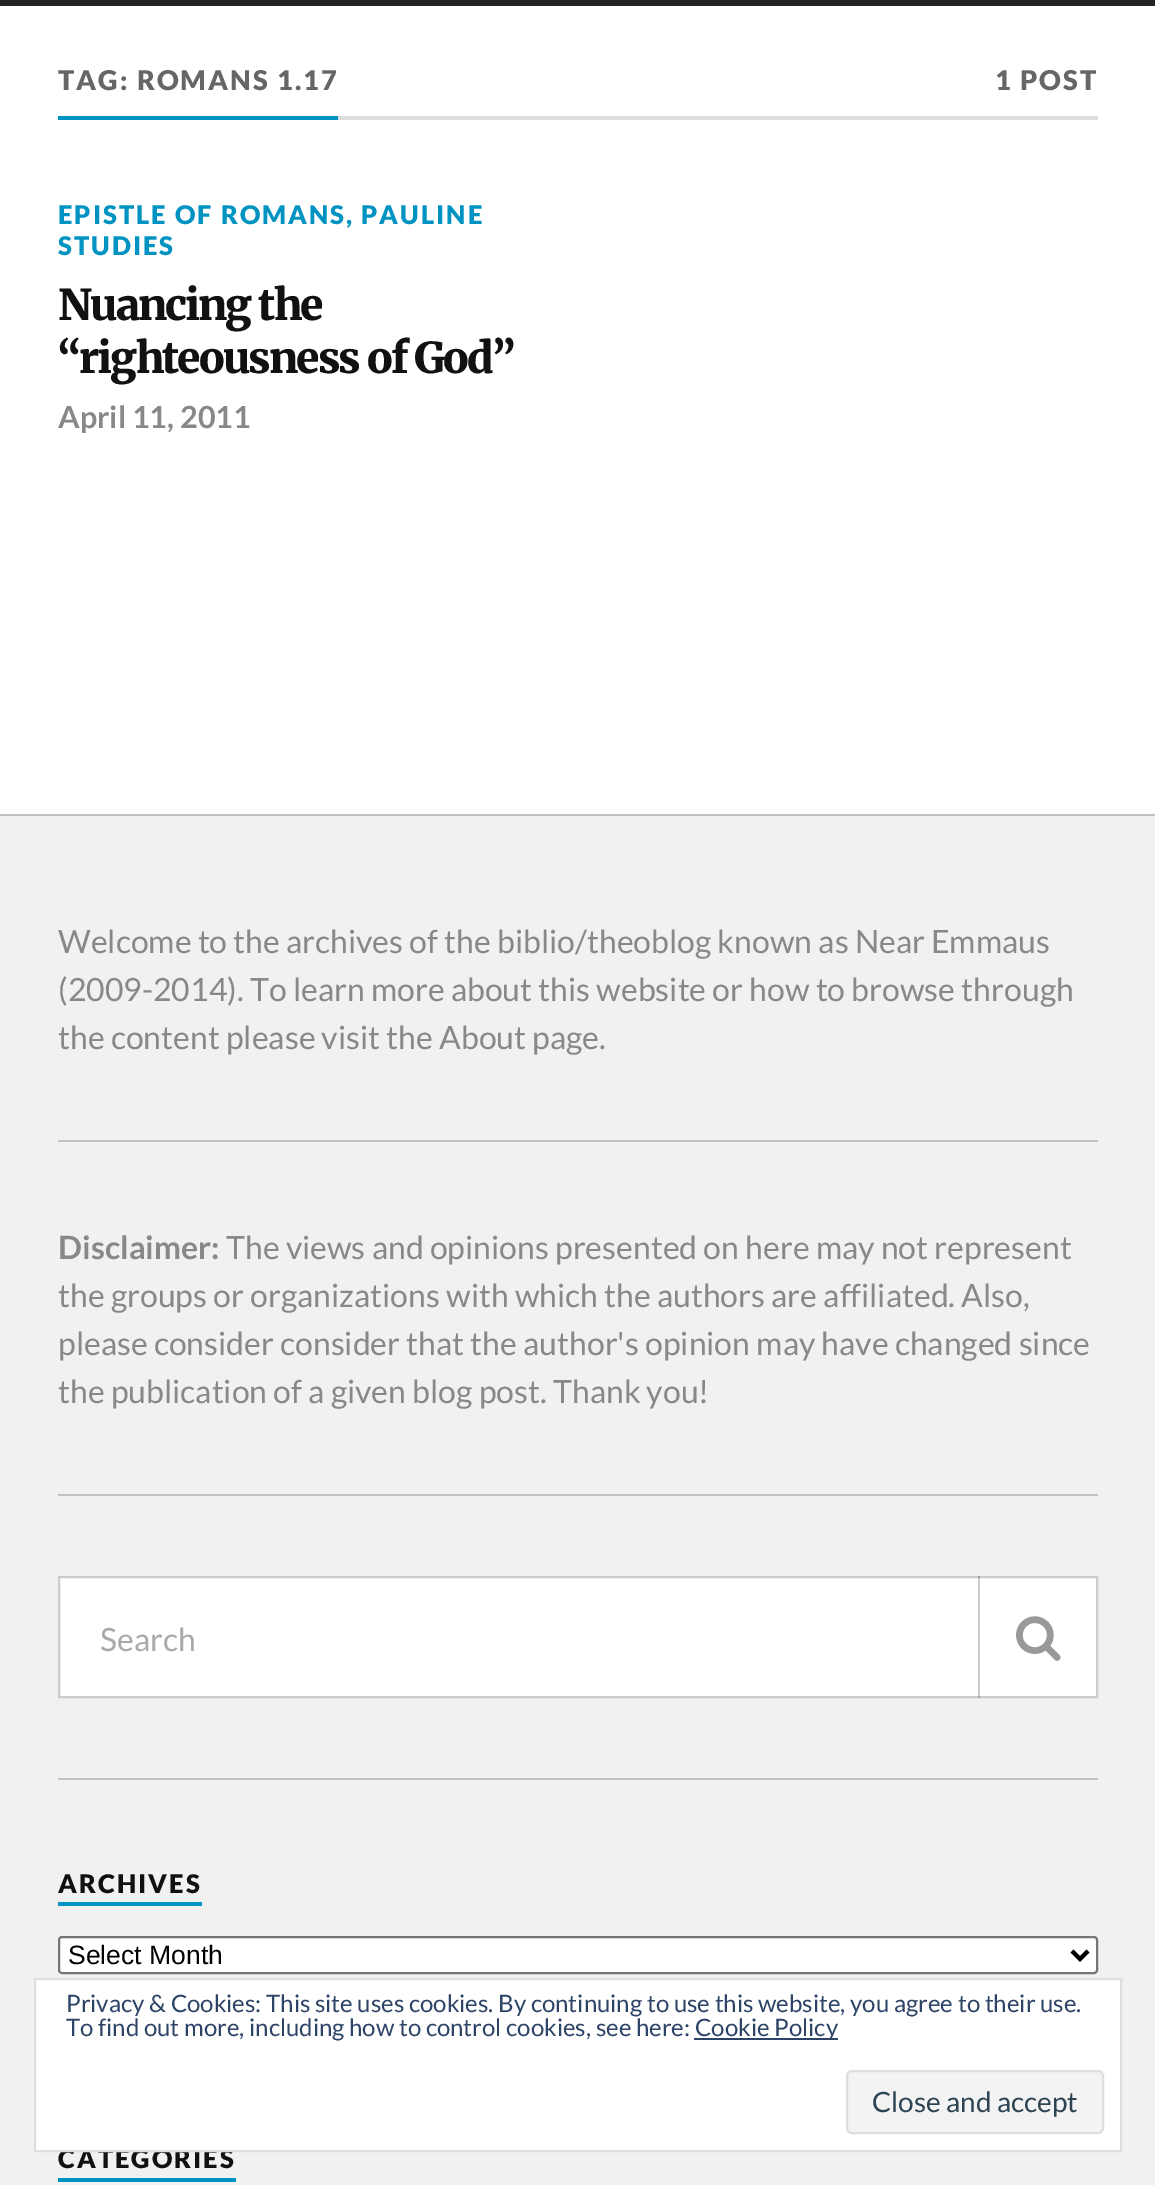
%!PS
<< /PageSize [1155 2185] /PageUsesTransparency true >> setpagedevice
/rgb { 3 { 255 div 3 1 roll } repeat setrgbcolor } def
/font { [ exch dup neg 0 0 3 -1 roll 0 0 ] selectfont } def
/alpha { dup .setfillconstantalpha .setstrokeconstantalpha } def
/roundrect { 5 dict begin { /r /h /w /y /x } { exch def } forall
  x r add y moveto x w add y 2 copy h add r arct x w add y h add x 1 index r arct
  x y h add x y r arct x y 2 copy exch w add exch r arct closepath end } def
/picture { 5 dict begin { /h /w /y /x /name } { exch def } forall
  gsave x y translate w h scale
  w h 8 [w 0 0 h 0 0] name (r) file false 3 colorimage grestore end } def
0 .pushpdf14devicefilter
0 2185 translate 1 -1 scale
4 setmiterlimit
255 255 255 rgb
0 0 1155 2185 rectfill
[
  [0 0 1155 6 34 34 34]
  [338 116 760 4 221 221 221]
  [58 116 280 4 0 147 194]
  [0 816 1155 1369 241 241 241]
  [0 814 1155 2 193 193 193]
  [58 1140 1040 2 193 193 193]
  [58 1494 1040 2 193 193 193]
] { aload pop rgb rectfill } forall
255 255 255 rgb
59 1577 moveto 1097 1577 lineto 1097 1697 lineto 59 1697 lineto closepath gsave fill grestore
204 204 204 rgb
2 setlinewidth
stroke
0.2 alpha
0 0 0 rgb
978 1576 2 122 rectfill
1 alpha
(img/1.rgb) 1016 1616 45 45 picture
193 193 193 rgb
58 1778 1040 2 rectfill
0 147 194 rgb
58 1902 144 4 rectfill
255 255 255 rgb
59 1937 1038 36 3 roundrect gsave fill grestore
118 118 118 rgb
stroke
0 0 0 rgb
4 setlinewidth
1072 1951 moveto 1080 1959 lineto 1088 1951 lineto stroke
0 147 194 rgb
58 2178 178 4 rectfill
/Lato-Black 27.25 font
102 102 102 rgb
58 90 moveto 2 0 (TAG: ROMANS 1.17) ashow
995 90 moveto 2 0 (1 POST) ashow
/Lato-Black 25.6 font
0 147 194 rgb
58 224 moveto 2 0 (EPISTLE OF ROMANS, PAULINE) ashow
58 255 moveto 2 0 (STUDIES) ashow
/Merriweather-Black 42.5 font
17 17 17 rgb
58 320 moveto -2 0 (Nuancing the) ashow
58 373 moveto -2 0 (“righteousness of God”) ashow
/Lato-Bold 30.5 font
136 136 136 rgb
58 428 moveto (April 11, 2011) show
/Lato-Regular 32 font
[
  [(Welcome to the archives of the biblio/theoblog known as Near Emmaus) 58 953]
  [(\(2009-2014\). To learn more about this website or how to browse through) 58 1001]
  [(the content please visit the About page.) 58 1049]
] { aload pop moveto show } forall
/Lato-Bold 32 font
58 1259 moveto (Disclaimer:) show
/Lato-Regular 32 font
[
  [(The views and opinions presented on here may not represent) 226 1259]
  [(the groups or organizations with which the authors are affiliated. Also,) 58 1307]
  [(please consider consider that the author's opinion may have changed since) 58 1355]
  [(the publication of a given blog post. Thank you!) 58 1403]
] { aload pop moveto show } forall
169 169 169 rgb
100 1651 moveto (Search) show
/Lato-Black 25.6 font
17 17 17 rgb
58 1893 moveto 2 0 (ARCHIVES) ashow
/LiberationSans-Regular 26.5 font
0 0 0 rgb
68 1964 moveto (Select Month) show
/Lato-Black 25.6 font
17 17 17 rgb
58 2168 moveto 2 0 (CATEGORIES) ashow
255 255 255 rgb
35 1979 moveto 1121 1979 lineto 1121 2151 lineto 35 2151 lineto closepath gsave fill grestore
222 222 222 rgb
2 setlinewidth
stroke
/Lato-Regular 24 font
46 68 103 rgb
66 2012 moveto (Privacy & Cookies: This site uses cookies. By continuing to use this website, you agree to their use.) show
66 2036 moveto (To find out more, including how to control cookies, see here:) show
694 2038 144 2 rectfill
695 2036 moveto (Cookie Policy) show
243 243 243 rgb
847 2071 256 62 5 roundrect gsave fill grestore
222 222 222 rgb
stroke
/Lato-Regular 28 font
46 68 83 rgb
872 2112 moveto (Close and accept) show
.poppdf14devicefilter showpage
